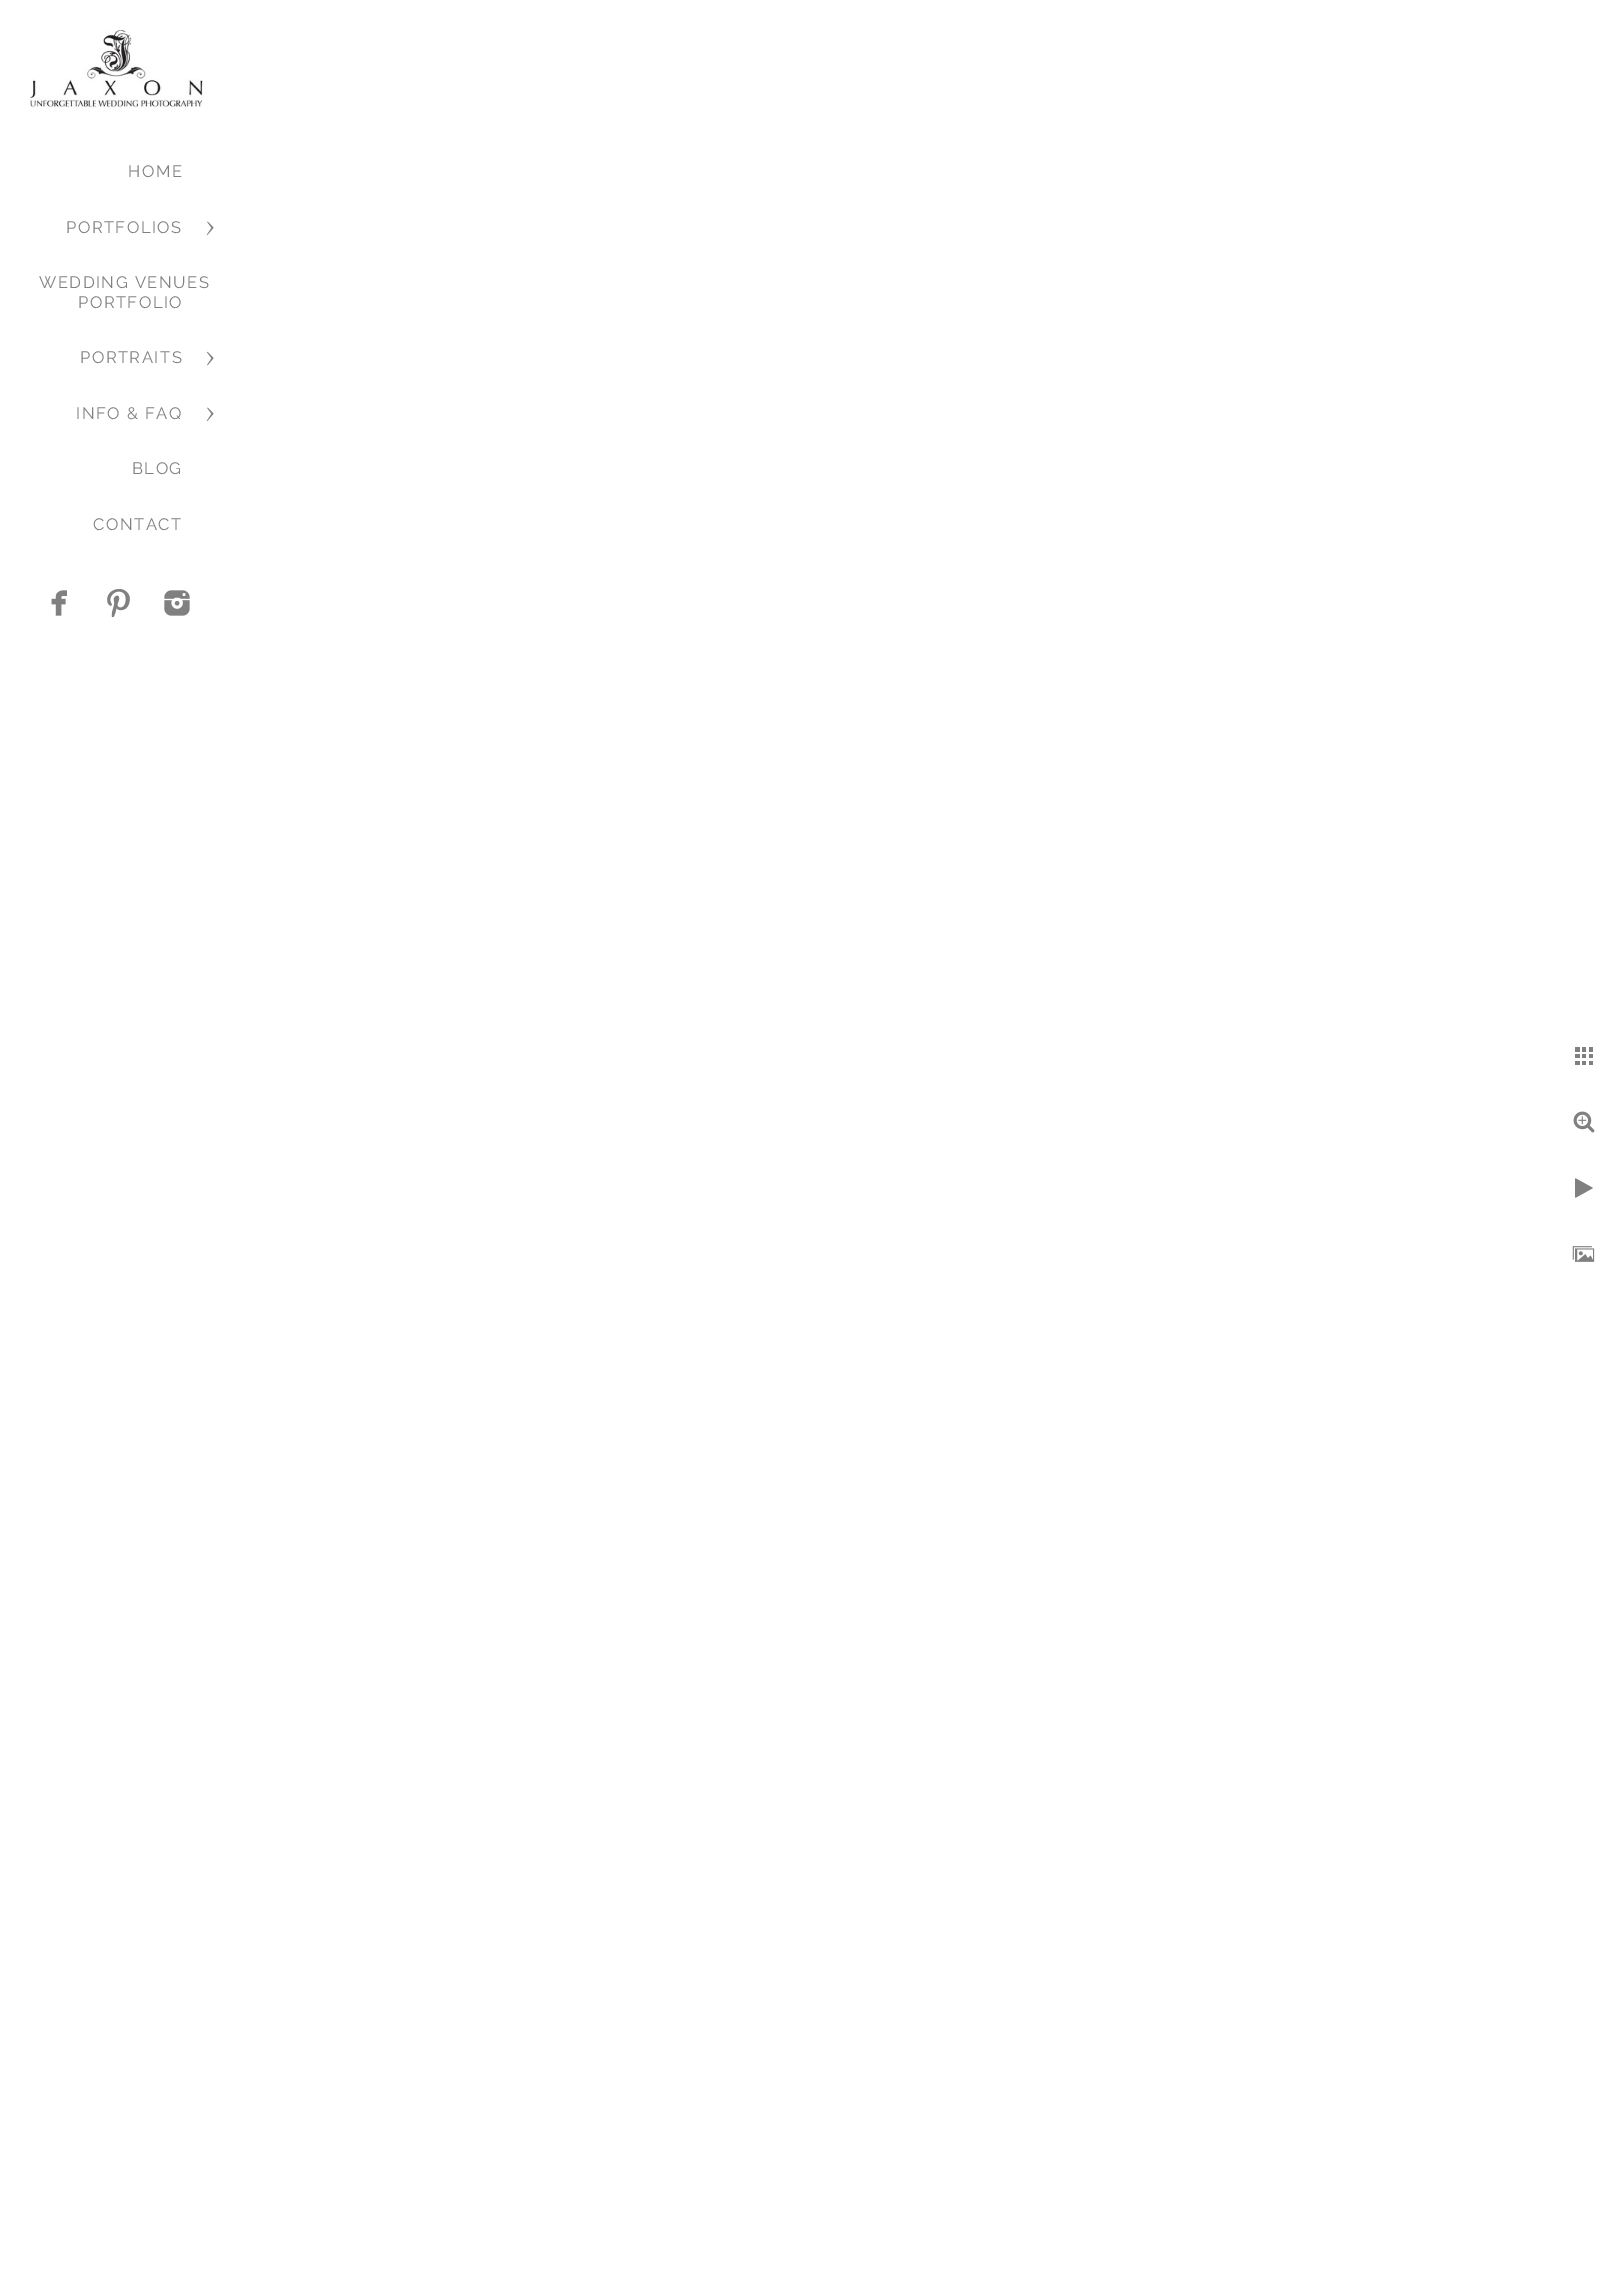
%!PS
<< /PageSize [1624 2278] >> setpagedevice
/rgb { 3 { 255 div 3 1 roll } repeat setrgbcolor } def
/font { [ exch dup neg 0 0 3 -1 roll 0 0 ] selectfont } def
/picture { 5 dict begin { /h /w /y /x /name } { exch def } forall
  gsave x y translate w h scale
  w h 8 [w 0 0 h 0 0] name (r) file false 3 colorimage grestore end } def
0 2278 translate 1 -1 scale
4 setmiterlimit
255 255 255 rgb
0 0 1624 2278 rectfill
(img/1.rgb) 30 30 173 78 picture
(img/2.rgb) 206 221 8 15 picture
(img/3.rgb) 206 351 8 15 picture
(img/2.rgb) 206 407 8 15 picture
(img/4.rgb) 51 590 16 26 picture
(img/5.rgb) 107 589 23 29 picture
(img/6.rgb) 164 590 26 26 picture
(img/7.rgb) 1575 1047 18 18 picture
(img/8.rgb) 1573 1111 22 22 picture
(img/9.rgb) 1575 1178 18 20 picture
(img/10.rgb) 1572 1246 23 16 picture
/Raleway-Thin 16.5 font
128 128 128 rgb
128 177 moveto 1.5 0 (HOME) ashow
66 233 moveto 1.5 0 (PORTFOLIOS) ashow
39 288 moveto 1.5 0 (WEDDING VENUES) ashow
78 308 moveto 1.5 0 (PORTFOLIO) ashow
80 363 moveto 1.5 0 (PORTRAITS) ashow
76 419 moveto 1.5 0 (INFO & FAQ) ashow
132 474 moveto 1.5 0 (BLOG) ashow
93 530 moveto 1.5 0 (CONTACT) ashow
showpage
